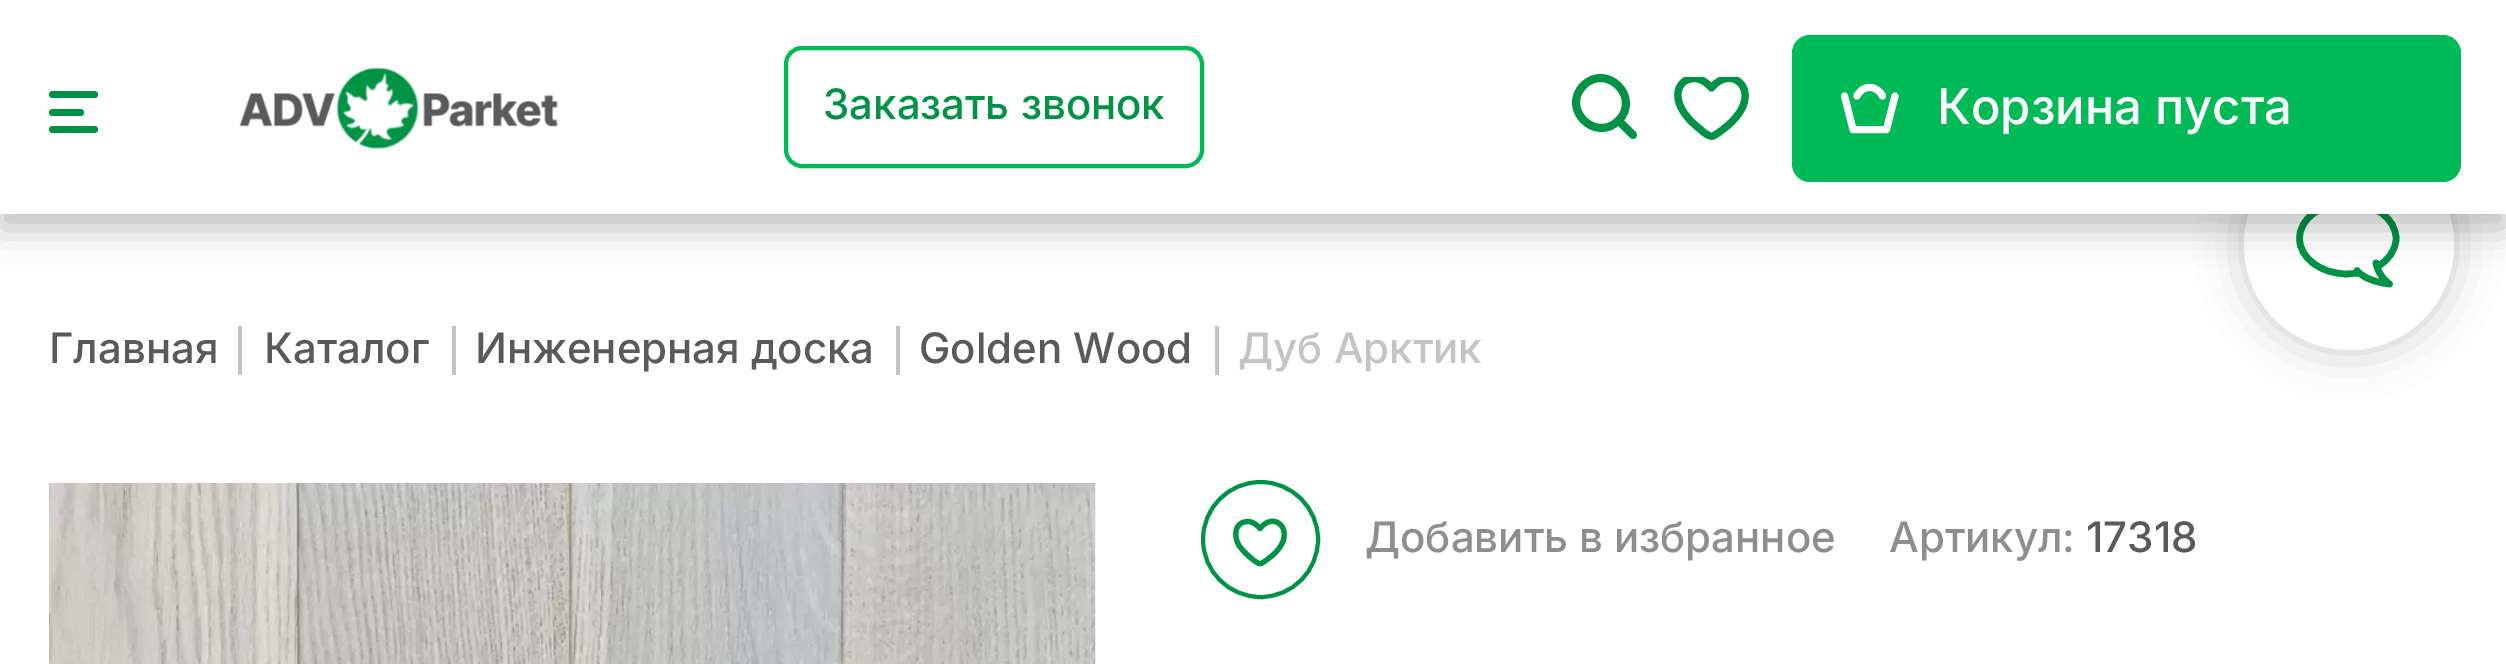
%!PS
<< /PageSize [2506 664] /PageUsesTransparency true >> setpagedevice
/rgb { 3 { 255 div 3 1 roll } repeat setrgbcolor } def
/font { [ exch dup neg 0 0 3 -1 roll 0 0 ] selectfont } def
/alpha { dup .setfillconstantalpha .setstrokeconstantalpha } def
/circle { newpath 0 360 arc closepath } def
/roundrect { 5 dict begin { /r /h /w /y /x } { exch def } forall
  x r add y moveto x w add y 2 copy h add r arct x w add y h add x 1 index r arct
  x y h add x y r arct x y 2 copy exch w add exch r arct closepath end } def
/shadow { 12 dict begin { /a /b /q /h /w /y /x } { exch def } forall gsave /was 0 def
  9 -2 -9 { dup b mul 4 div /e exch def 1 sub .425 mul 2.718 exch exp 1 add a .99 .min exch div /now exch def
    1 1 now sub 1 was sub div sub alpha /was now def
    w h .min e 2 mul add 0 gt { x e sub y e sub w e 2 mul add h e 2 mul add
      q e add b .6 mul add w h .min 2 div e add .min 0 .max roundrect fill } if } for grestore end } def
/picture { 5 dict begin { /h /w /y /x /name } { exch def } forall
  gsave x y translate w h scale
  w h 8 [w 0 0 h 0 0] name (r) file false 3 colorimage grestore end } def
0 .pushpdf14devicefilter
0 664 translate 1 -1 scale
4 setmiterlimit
255 255 255 rgb
0 0 2506 664 rectfill
0 0 0 rgb
2244 140 210 210 105 23 0.2 shadow
255 255 255 rgb
2349 245 105 circle fill
0 147 69 rgb
6.6 setlinewidth
1 setlinecap
1 setlinejoin
2357 270.5 moveto 2366 282 2389.5 284 2389.5 284 curveto 2389.5 284 2378 276 2376 263 curveto stroke
0 setlinecap
0 setlinejoin
2359 273 moveto 2347.5 274 lineto 2321 274 2299.5 258 2299.5 238.5 curveto 2299.5 218.5 2321 203 2347.5 203 curveto 2374.5 203 2396 218.5 2396 238.5 curveto 2396 249.5 2389 260 2377.5 266.5 curveto stroke
0 0 0 rgb
0 14 2506 214 0 17.5 0.25 shadow
255 255 255 rgb
0 0 2506 214 rectfill
0 147 69 rgb
49 109 35 7 3.5 roundrect fill
49 91 49 7 3.5 roundrect fill
49 126 49 7 3.5 roundrect fill
(img/1.rgb) 239 68 319 81 picture
0 185 87 rgb
4 setlinewidth
786 48 416 118 16 roundrect stroke
0 147 69 rgb
7.9 setlinewidth
1583.5 85.5 moveto 1606.5 62.5 1641.5 97.5 1618.5 120.5 curveto 1595.5 143.5 1560.5 108.5 1583.5 85.5 curveto closepath stroke
1 setlinecap
1622 124 moveto 1633 135 lineto stroke
gsave
1673 77 77 63 rectclip
7.2 setlinewidth
1 setlinejoin
1694.5 78.5 moveto 1691.5 78.5 1688 79.5 1685 81 curveto 1674.5 88 1677 102 1683 111 curveto 1687.5 118.5 1693.5 124.5 1700 129 curveto 1701.5 130.5 1709 137.5 1713 136 curveto 1718 133.5 1726.5 127 1730.5 123 curveto 1764.5 91.5 1731.5 62.5 1711.5 88 curveto 1711.5 88 1704 78.5 1694.5 78.5 curveto closepath stroke
grestore
0 185 87 rgb
1792 35 669 147 18 roundrect fill
255 255 255 rgb
7 setlinewidth
1 setlinejoin
1844.5 96 moveto 1853 129.5 lineto 1886.5 129.5 lineto 1895 96 lineto 1857 96 moveto 1862.5 84.5 1876.5 84.5 1882.5 96 curveto stroke
[
  [238 326 4 49 196 196 196]
  [452 326 4 49 196 196 196]
  [896 326 4 49 196 196 196]
  [1215 326 4 49 196 196 196]
] { aload pop rgb rectfill } forall
(img/2.rgb) 49 483 1047 181 picture
0 147 69 rgb
4 setlinewidth
0 setlinecap
0 setlinejoin
1260.5 539.5 57.5 circle stroke
5.2 setlinewidth
1 setlinecap
1 setlinejoin
1248 521.5 moveto 1234 521.5 1233.5 536.5 1239 545.5 curveto 1242.5 550.5 1247 555 1251.5 558.5 curveto 1253 559.5 1258 564.5 1261 563.5 curveto 1264.5 562 1271 556.5 1274 554 curveto 1298 531.5 1274.5 509.5 1260 528.5 curveto 1260 528.5 1254.5 521.5 1248 521.5 curveto closepath stroke
/Inter-Medium 42 font
823 119 moveto (Заказать звонок) show
/Inter-Medium 49 font
255 255 255 rgb
1937 124 moveto (Корзина пуста) show
/Inter-Medium 42 font
88 90 92 rgb
[
  [(Главная) 49 363]
  [(Каталог) 264 363]
  [(Инженерная доска) 475 363]
  [(Golden Wood) 919 363]
] { aload pop moveto show } forall
196 196 196 rgb
1238 363 moveto (Дуб Арктик) show
142 142 142 rgb
1365 552 moveto (Добавить в избранное) show
1889 552 moveto (Артикул:) show
88 90 92 rgb
2086 552 moveto (17318) show
.poppdf14devicefilter showpage
